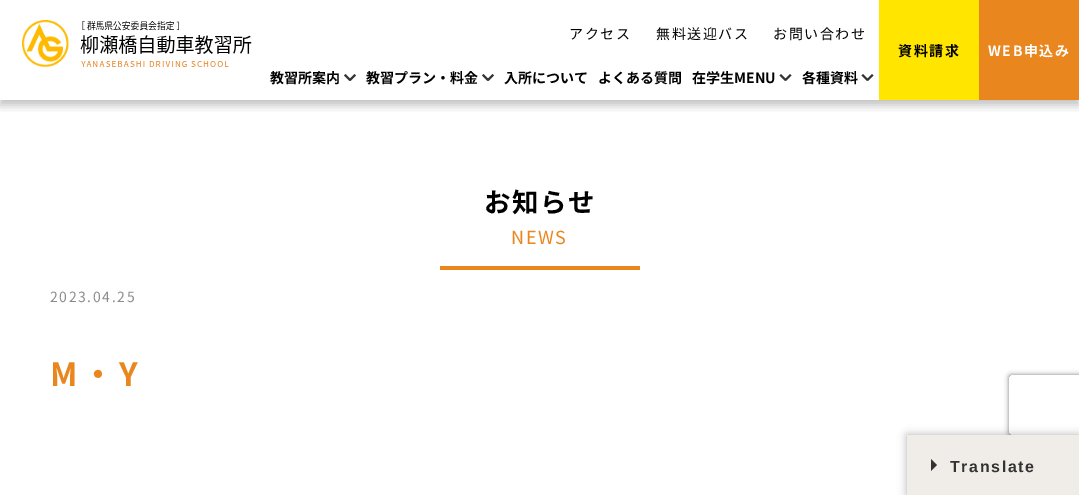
%!PS
<< /PageSize [1079 495] /PageUsesTransparency true >> setpagedevice
/rgb { 3 { 255 div 3 1 roll } repeat setrgbcolor } def
/font { [ exch dup neg 0 0 3 -1 roll 0 0 ] selectfont } def
/alpha { dup .setfillconstantalpha .setstrokeconstantalpha } def
/roundrect { 5 dict begin { /r /h /w /y /x } { exch def } forall
  x r add y moveto x w add y 2 copy h add r arct x w add y h add x 1 index r arct
  x y h add x y r arct x y 2 copy exch w add exch r arct closepath end } def
/shadow { 12 dict begin { /a /b /q /h /w /y /x } { exch def } forall gsave /was 0 def
  9 -2 -9 { dup b mul 4 div /e exch def 1 sub .425 mul 2.718 exch exp 1 add a .99 .min exch div /now exch def
    1 1 now sub 1 was sub div sub alpha /was now def
    w h .min e 2 mul add 0 gt { x e sub y e sub w e 2 mul add h e 2 mul add
      q e add b .6 mul add w h .min 2 div e add .min 0 .max roundrect fill } if } for grestore end } def
/picture { 5 dict begin { /h /w /y /x /name } { exch def } forall
  gsave x y translate w h scale
  w h 8 [w 0 0 h 0 0] name (r) file false 3 colorimage grestore end } def
0 .pushpdf14devicefilter
0 495 translate 1 -1 scale
4 setmiterlimit
255 255 255 rgb
0 0 1079 495 rectfill
gsave
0 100 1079 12 rectclip
0 0 0 rgb
0 5 1079 100 0 5 0.25 shadow
grestore
(img/1.rgb) 22 20 230 47 picture
51 51 51 rgb
345.5 74 moveto 351 79.5 lineto 349.5 81 lineto 344 75.5 lineto closepath fill
349 79.5 moveto 354.5 74 lineto 356 75.5 lineto 350.5 81 lineto closepath fill
483.5 74 moveto 489 79.5 lineto 487.5 81 lineto 482 75.5 lineto closepath fill
487 79.5 moveto 492.5 74 lineto 494 75.5 lineto 488.5 81 lineto closepath fill
781 74 moveto 786.5 79.5 lineto 785 81 lineto 779.5 75.5 lineto closepath fill
784.5 79.5 moveto 790 74 lineto 791.5 75.5 lineto 786 81 lineto closepath fill
863 74 moveto 868.5 79.5 lineto 867 81 lineto 861.5 75.5 lineto closepath fill
866.5 79.5 moveto 872 74 lineto 873.5 75.5 lineto 868 81 lineto closepath fill
[
  [879 0 100 100 255 229 0]
  [979 0 100 100 234 134 30]
  [440 266 200 4 234 134 30]
] { aload pop rgb rectfill } forall
gsave
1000 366 moveto 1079 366 lineto 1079 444 lineto 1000 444 lineto closepath 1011 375 moveto 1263 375 lineto 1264 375 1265 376 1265 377 curveto 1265 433 lineto 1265 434 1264 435 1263 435 curveto 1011 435 lineto 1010 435 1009 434 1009 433 curveto 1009 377 lineto 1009 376 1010 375 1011 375 curveto closepath eoclip newpath
128 128 128 rgb
1009 375 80 60 2 2.5 1 shadow
grestore
0 0 0 rgb
907 435 172 60 0 4.5 0.3 shadow
240 236 232 rgb
907 435 172 60 rectfill
51 51 51 rgb
931 459 moveto 937 465 lineto 931 471 lineto closepath fill
/NotoSansJP-Regular 14 font
0 0 0 rgb
569 39 moveto 1.6 0 (アクセス) ashow
656 39 moveto 1.6 0 (無料送迎バス) ashow
773 39 moveto 1.6 0 (お問い合わせ) ashow
/NotoSansJP-Bold 14 font
[
  [(教習所案内) 270 83]
  [(教習プラン・料金) 366 83]
  [(入所について) 504 83]
  [(よくある質問) 598 83]
  [(在学生MENU) 692 83]
  [(各種資料) 802 83]
] { aload pop moveto show } forall
898 56 moveto 1.6 0 (資料請求) ashow
255 255 255 rgb
988 56 moveto 1.6 0 (WEB申込み) ashow
/NotoSansJP-Bold 26.5 font
0 0 0 rgb
484 212 moveto 1.6 0 (お知らせ) ashow
/NotoSansJP-Regular 18 font
234 134 30 rgb
511 244 moveto 1.6 0 (NEWS) ashow
/NotoSansJP-Regular 14 font
140 140 140 rgb
50 302 moveto 1.6 0 (2023.04.25) ashow
/NotoSansJP-Bold 32 font
234 134 30 rgb
50 386 moveto 5 0 (M・Y) ashow
/LiberationSans-Bold 16 font
51 51 51 rgb
950 472 moveto 1.6 0 (Translate) ashow
.poppdf14devicefilter showpage
